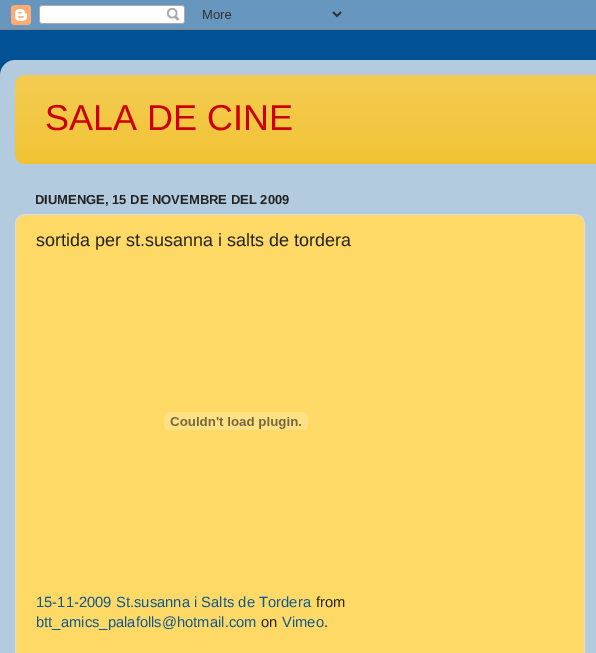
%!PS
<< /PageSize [596 653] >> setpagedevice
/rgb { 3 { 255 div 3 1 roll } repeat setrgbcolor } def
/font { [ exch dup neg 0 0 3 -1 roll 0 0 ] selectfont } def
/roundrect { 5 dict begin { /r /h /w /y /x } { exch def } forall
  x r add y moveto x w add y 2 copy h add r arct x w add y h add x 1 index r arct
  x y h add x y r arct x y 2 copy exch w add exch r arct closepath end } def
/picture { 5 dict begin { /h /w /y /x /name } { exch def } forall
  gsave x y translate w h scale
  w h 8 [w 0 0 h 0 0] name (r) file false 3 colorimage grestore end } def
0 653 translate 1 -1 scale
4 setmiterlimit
1 82 148 rgb
0 0 596 653 rectfill
(img/1.rgb) 0 0 596 30 picture
(img/2.rgb) 0 60 596 593 picture
241 194 50 rgb
15 75 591 89 10 roundrect fill
(img/3.rgb) 15 75 581 84 picture
255 217 102 rgb
15.5 214.5 569 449 9.5 roundrect gsave fill grestore
220 220 220 rgb
stroke
(img/4.rgb) 164 412 144 18 picture
/LiberationSans-Regular 36 font
204 0 0 rgb
45 130 moveto (SALA DE CINE) show
/LiberationSans-Bold 13 font
35 35 35 rgb
35 204 moveto (DIUMENGE, 15 DE NOVEMBRE DEL 2009) show
/LiberationSans-Regular 18 font
36 246 moveto (sortida per st.susanna i salts de tordera) show
/LiberationSans-Regular 14.8 font
16 87 145 rgb
36 607 moveto (15-11-2009 St.susanna i Salts de Tordera) show
35 35 35 rgb
316 607 moveto (from) show
16 87 145 rgb
36 627 moveto (btt_amics_palafolls@hotmail.com) show
35 35 35 rgb
261 627 moveto (on) show
16 87 145 rgb
282 627 moveto (Vimeo) show
35 35 35 rgb
324 627 moveto (.) show
showpage
